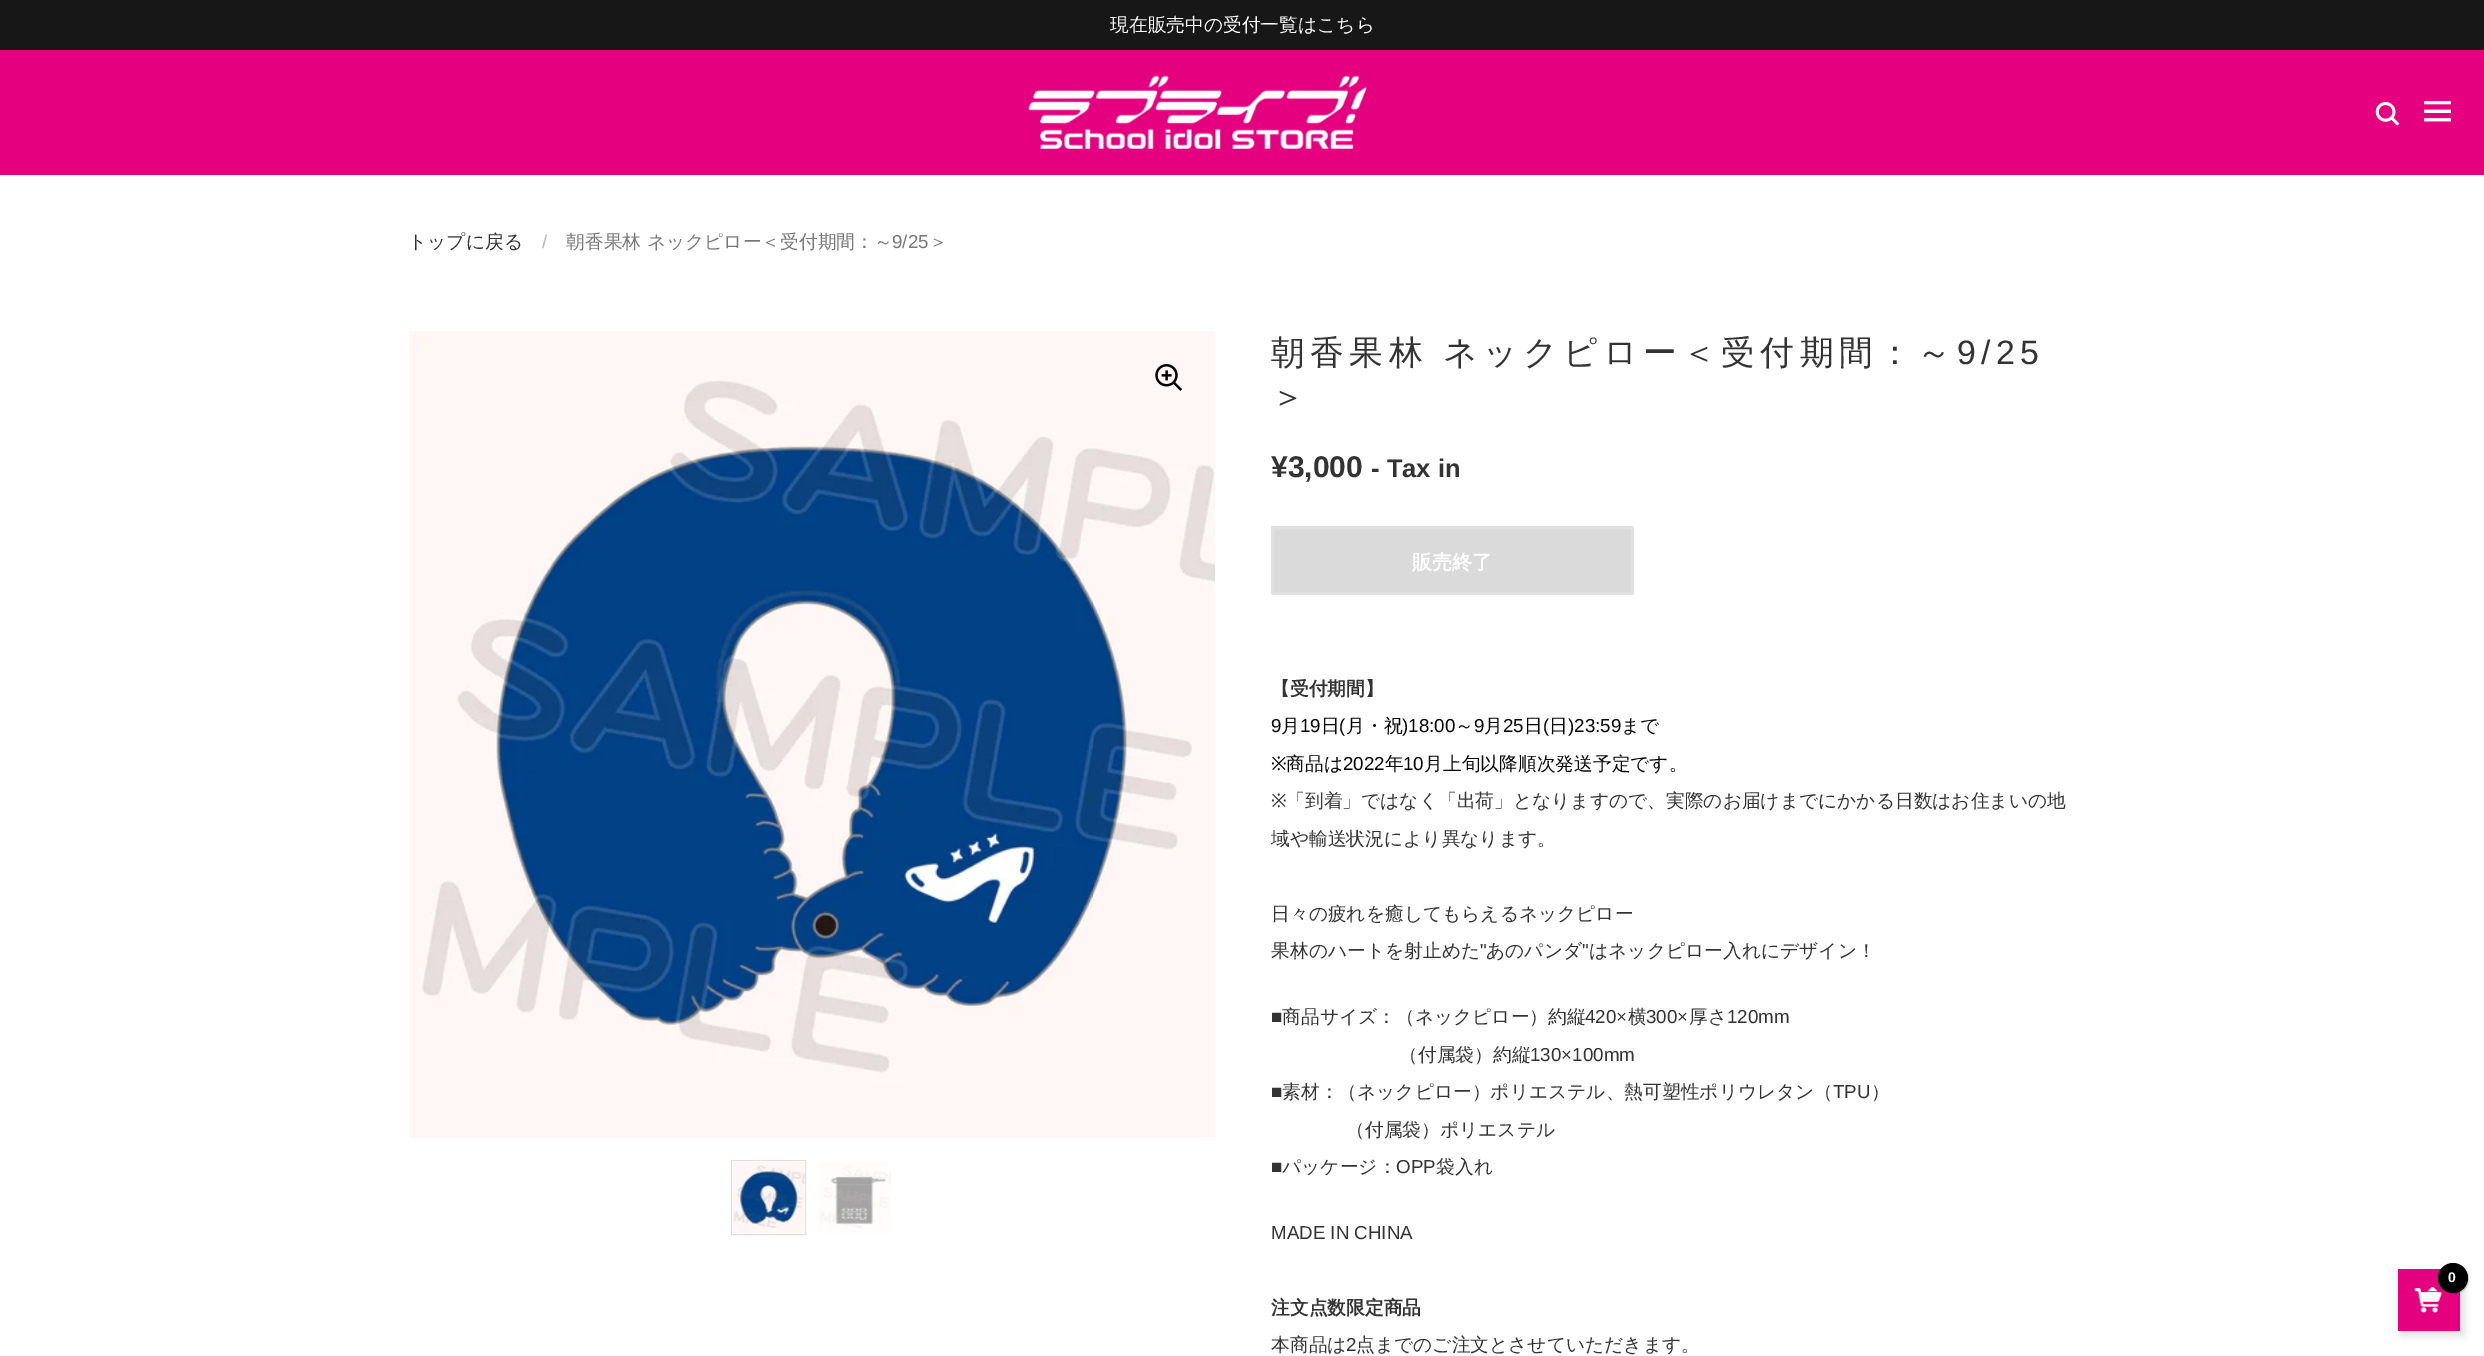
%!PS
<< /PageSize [2484 1356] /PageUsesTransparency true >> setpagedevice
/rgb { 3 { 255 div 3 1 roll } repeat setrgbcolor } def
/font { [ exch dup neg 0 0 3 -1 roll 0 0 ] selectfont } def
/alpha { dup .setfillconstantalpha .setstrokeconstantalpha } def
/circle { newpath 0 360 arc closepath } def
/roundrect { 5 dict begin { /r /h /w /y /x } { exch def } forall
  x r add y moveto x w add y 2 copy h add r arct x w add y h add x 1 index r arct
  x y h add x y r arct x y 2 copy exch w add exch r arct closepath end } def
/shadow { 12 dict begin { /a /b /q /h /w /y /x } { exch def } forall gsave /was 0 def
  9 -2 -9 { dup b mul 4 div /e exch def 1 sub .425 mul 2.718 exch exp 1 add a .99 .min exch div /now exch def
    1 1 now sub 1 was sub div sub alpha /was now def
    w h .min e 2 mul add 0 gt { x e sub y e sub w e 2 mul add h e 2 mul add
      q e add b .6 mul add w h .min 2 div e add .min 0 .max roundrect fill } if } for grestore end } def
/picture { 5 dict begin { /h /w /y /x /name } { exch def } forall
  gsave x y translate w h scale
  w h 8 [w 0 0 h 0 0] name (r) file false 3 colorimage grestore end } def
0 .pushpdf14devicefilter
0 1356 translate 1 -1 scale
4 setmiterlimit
255 255 255 rgb
0 0 2484 1356 rectfill
23 23 23 rgb
0 0 2484 50 rectfill
(img/1.rgb) 409 331 806 807 picture
(img/2.rgb) 1155 364 28 27 picture
222 222 222 rgb
731.5 1160.5 74 74 rectstroke
(img/3.rgb) 732 1161 74 73 picture
(img/4.rgb) 819 1162 72 72 picture
218 218 218 rgb
1271 526 363 69 2.5 roundrect fill
0.16 alpha
255 255 255 rgb
3 setlinewidth
1272.5 527.5 360 66 1 roundrect stroke
1 alpha
228 0 127 rgb
0 50 2484 125 rectfill
(img/5.rgb) 1028 75 339 74 picture
(img/6.rgb) 2375 102 25 24 picture
(img/7.rgb) 2424 101 27 21 picture
64 64 64 rgb
2401 1273 63 62 0 4.5 0.19 shadow
228 0 127 rgb
2398 1269 62 62 rectfill
(img/8.rgb) 2414 1287 28 26 picture
37 37 37 rgb
2439 1264 30 30 15 0.5 0.22 shadow
0 0 0 rgb
2453 1278 15 circle fill
/WenQuanYiZenHei-Medium 18.75 font
255 255 255 rgb
1110 31 moveto (現在販売中の受付一覧はこちら) show
51 51 51 rgb
408 248 moveto (トップに戻る) show
/LiberationSans-Regular 18.75 font
182 182 182 rgb
542 248 moveto (/) show
/WenQuanYiZenHei-Medium 18.75 font
120 120 120 rgb
566 248 moveto (朝香果林 ネックピロー＜受付期間：～) show
/LiberationSans-Regular 18.75 font
892 248 moveto (9/25) show
/WenQuanYiZenHei-Medium 18.75 font
929 248 moveto (＞) show
/WenQuanYiZenHei-Medium 33.85 font
51 51 51 rgb
1271 364 moveto -1 0 32 5.4 0 (朝香果林 ネックピロー＜受付期間：～) awidthshow
/LiberationSans-Regular 33.85 font
1957 364 moveto 5.4 0 (9/25) ashow
/WenQuanYiZenHei-Medium 33.85 font
1271 408 moveto 5.4 0 (＞) ashow
/LiberationSans-Bold 30 font
1271 477 moveto (¥3,000) show
/LiberationSans-Bold 25.5 font
1371 477 moveto (- Tax in) show
/WenQuanYiZenHei-Bold 20 font
255 255 255 rgb
1412 569 moveto (販売終了) show
/WenQuanYiZenHei-Bold 18.75 font
51 51 51 rgb
1271 695 moveto (【受付期間】) show
/LiberationSans-Regular 18.75 font
3 3 3 rgb
1271 732 moveto (9) show
/WenQuanYiZenHei-Medium 18.75 font
1281 732 moveto (月) show
/LiberationSans-Regular 18.75 font
1300 732 moveto (19) show
/WenQuanYiZenHei-Medium 18.75 font
1321 732 moveto (日) show
/LiberationSans-Regular 18.75 font
1339 732 moveto (\() show
/WenQuanYiZenHei-Medium 18.75 font
1346 732 moveto (月・祝) show
/LiberationSans-Regular 18.75 font
1402 732 moveto (\)18:00) show
/WenQuanYiZenHei-Medium 18.75 font
1455 732 moveto (～) show
/LiberationSans-Regular 18.75 font
1474 732 moveto (9) show
/WenQuanYiZenHei-Medium 18.75 font
1484 732 moveto (月) show
/LiberationSans-Regular 18.75 font
1503 732 moveto (25) show
/WenQuanYiZenHei-Medium 18.75 font
1524 732 moveto (日) show
/LiberationSans-Regular 18.75 font
1543 732 moveto (\() show
/WenQuanYiZenHei-Medium 18.75 font
1549 732 moveto (日) show
/LiberationSans-Regular 18.75 font
1568 732 moveto (\)23:59) show
/WenQuanYiZenHei-Medium 18.75 font
1621 732 moveto (まで) show
/NotoSans-Regular 18.75 font
1271 770 moveto (※) show
/WenQuanYiZenHei-Medium 18.75 font
1286 770 moveto (商品は) show
/LiberationSans-Regular 18.75 font
1343 770 moveto (2022) show
/WenQuanYiZenHei-Medium 18.75 font
1385 770 moveto (年) show
/LiberationSans-Regular 18.75 font
1403 770 moveto (10) show
/WenQuanYiZenHei-Medium 18.75 font
1424 770 moveto (月上旬以降順次発送予定です。) show
/NotoSans-Regular 18.75 font
51 51 51 rgb
1271 807 moveto (※) show
/WenQuanYiZenHei-Medium 18.75 font
[
  [(「到着」ではなく「出荷」となりますので、実際のお届けまでにかかる日数はお住まいの地) 1286 807]
  [(域や輸送状況により異なります。) 1271 845]
  [(日々の疲れを癒してもらえるネックピロー) 1271 920]
  [(果林のハートを射止めた) 1271 957]
] { aload pop moveto show } forall
/LiberationSans-Regular 18.75 font
1480 957 moveto (") show
/WenQuanYiZenHei-Medium 18.75 font
1486 957 moveto (あのパンダ) show
/LiberationSans-Regular 18.75 font
1582 957 moveto (") show
/WenQuanYiZenHei-Medium 18.75 font
1589 957 moveto (はネックピロー入れにデザイン！) show
/LiberationSans-Regular 18.75 font
1271 1023 moveto (■) show
/WenQuanYiZenHei-Medium 18.75 font
1282 1023 moveto (商品サイズ：（ネックピロー）約縦) show
/LiberationSans-Regular 18.75 font
1585 1023 moveto (420×) show
/WenQuanYiZenHei-Medium 18.75 font
1628 1023 moveto (横) show
/LiberationSans-Regular 18.75 font
1646 1023 moveto (300×) show
/WenQuanYiZenHei-Medium 18.75 font
1689 1023 moveto (厚さ) show
/LiberationSans-Regular 18.75 font
1727 1023 moveto (120mm) show
/WenQuanYiZenHei-Medium 18.75 font
1399 1061 moveto (（付属袋）約縦) show
/LiberationSans-Regular 18.75 font
1530 1061 moveto (130×100mm) show
1271 1098 moveto (■) show
/WenQuanYiZenHei-Medium 18.75 font
1282 1098 moveto (素材：（ネックピロー）ポリエステル、熱可塑性ポリウレタン（) show
/LiberationSans-Regular 18.75 font
1833 1098 moveto (TPU) show
/WenQuanYiZenHei-Medium 18.75 font
1871 1098 moveto (）) show
1346 1136 moveto (（付属袋）ポリエステル) show
/LiberationSans-Regular 18.75 font
1271 1173 moveto (■) show
/WenQuanYiZenHei-Medium 18.75 font
1282 1173 moveto (パッケージ：) show
/LiberationSans-Regular 18.75 font
1396 1173 moveto (OPP) show
/WenQuanYiZenHei-Medium 18.75 font
1436 1173 moveto (袋入れ) show
/LiberationSans-Regular 18.75 font
1271 1239 moveto (MADE IN CHINA) show
/WenQuanYiZenHei-Bold 18.75 font
1271 1314 moveto (注文点数限定商品) show
/WenQuanYiZenHei-Medium 18.75 font
1271 1351 moveto (本商品は) show
/LiberationSans-Regular 18.75 font
1346 1351 moveto (2) show
/WenQuanYiZenHei-Medium 18.75 font
1356 1351 moveto (点までのご注文とさせていただきます。) show
/LiberationSans-Bold 14 font
255 255 255 rgb
2448 1282 moveto (0) show
.poppdf14devicefilter showpage
